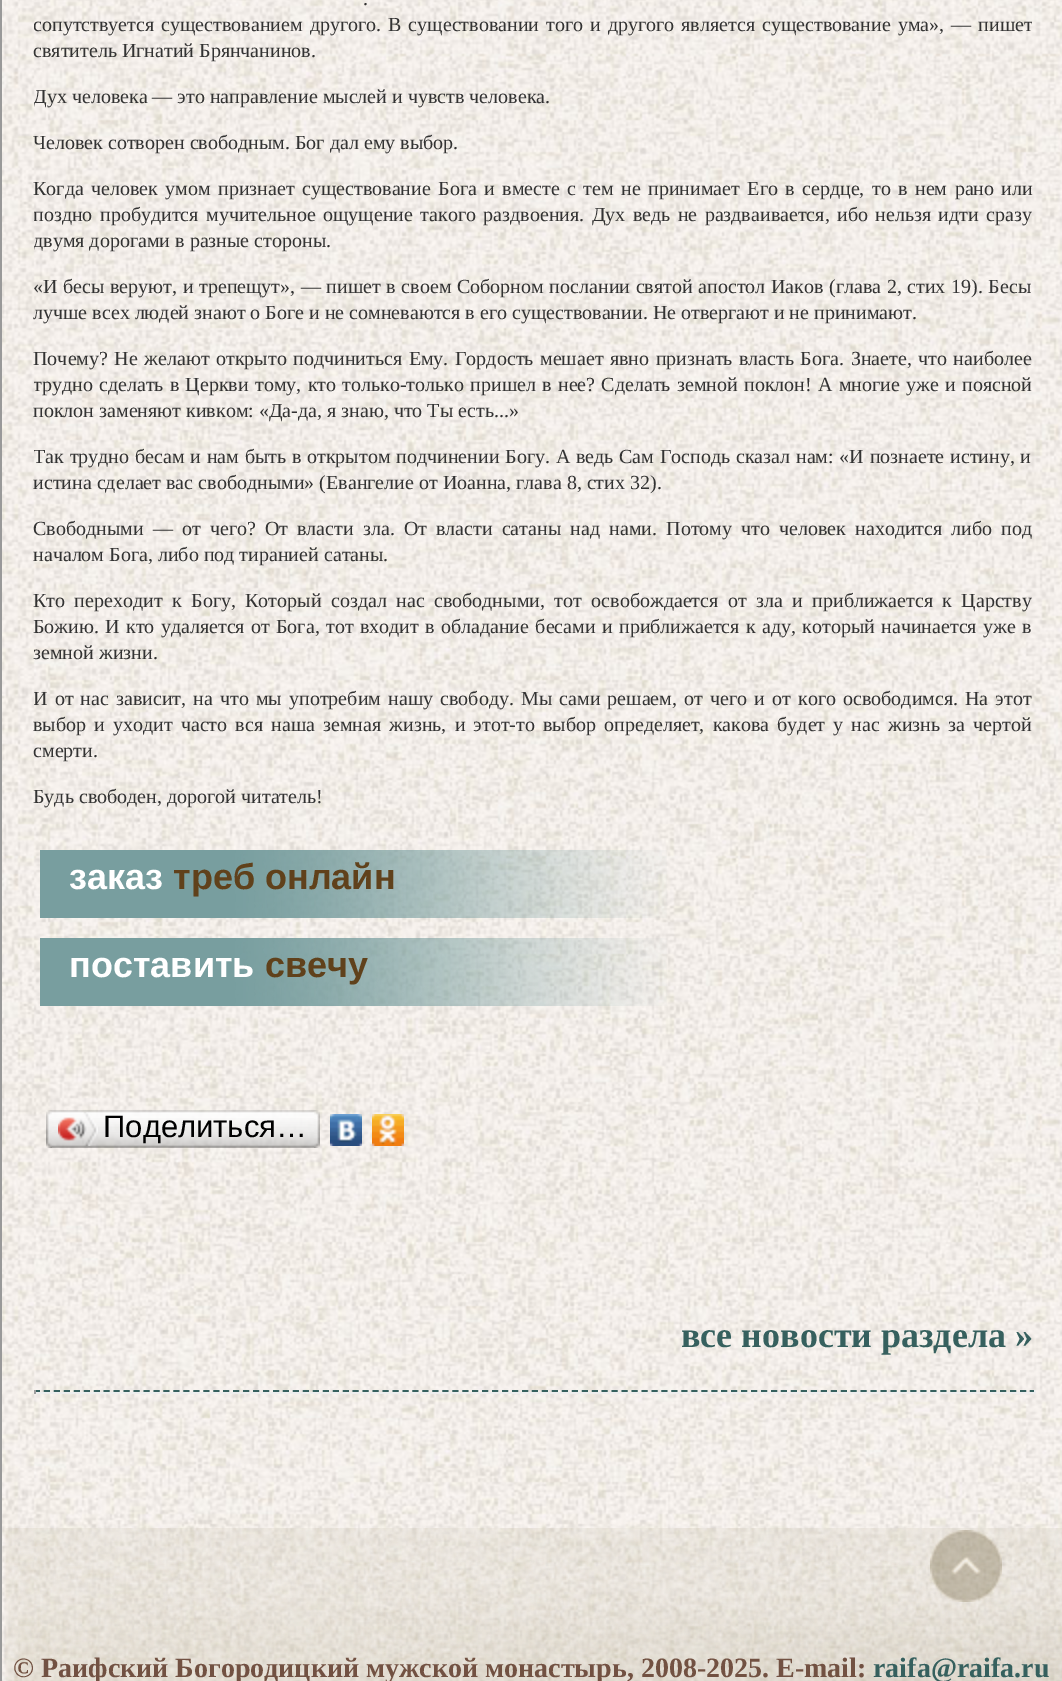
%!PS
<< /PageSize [1062 1681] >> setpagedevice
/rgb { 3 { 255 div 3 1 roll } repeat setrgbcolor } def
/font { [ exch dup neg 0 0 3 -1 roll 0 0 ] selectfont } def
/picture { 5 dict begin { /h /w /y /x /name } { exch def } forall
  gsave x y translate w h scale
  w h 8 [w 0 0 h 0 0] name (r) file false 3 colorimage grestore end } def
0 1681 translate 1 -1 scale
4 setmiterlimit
255 255 255 rgb
0 0 1062 1681 rectfill
(img/1.rgb) 2 0 1060 1681 picture
153 153 153 rgb
0 0 2 1681 rectfill
(img/2.rgb) 40 850 627 68 picture
(img/3.rgb) 40 938 627 68 picture
(img/4.rgb) 52 1110 262 38 picture
(img/5.rgb) 46 1110 6 38 picture
(img/6.rgb) 58 1112 40 34 picture
(img/7.rgb) 314 1110 6 38 picture
(img/8.rgb) 330 1114 32 32 picture
(img/9.rgb) 372 1114 32 32 picture
54 96 94 rgb
2 setlinewidth
[6 3.96] 0 setdash
34 1391 moveto 1036 1391 lineto stroke
[
  [1034 1390 2 4 238 238 238]
  [34 1392 1002 2 238 238 238]
  [34 1390 2 4 159 159 159]
] { aload pop rgb rectfill } forall
(img/10.rgb) 4 1528 1058 153 picture
(img/11.rgb) 930 1530 72 72 picture
/LiberationSerif-Regular 20 font
51 51 51 rgb
363 5 moveto 9 0 32 (.) widthshow
gsave
34 0 998 830 rectclip
33 31 moveto 2 0 32 (сопутствуется существованием другого. В существовании того и другого является существование ума», — пишет) widthshow
grestore
33 57 moveto (святитель Игнатий Брянчанинов.) show
gsave
34 0 998 830 rectclip
33 103 moveto (Дух человека — это направление мыслей и чувств человека.) show
grestore
33 149 moveto (Человек сотворен свободным. Бог дал ему выбор.) show
33 195 moveto 2.4 0 32 (Когда человек умом признает существование Бога и вместе с тем не принимает Его в сердце, то в нем рано или) widthshow
gsave
34 0 998 830 rectclip
33 221 moveto 2.4 0 32 (поздно пробудится мучительное ощущение такого раздвоения. Дух ведь не раздваивается, ибо нельзя идти сразу) widthshow
33 247 moveto (двумя дорогами в разные стороны.) show
grestore
33 293 moveto 0.6 0 32 («И бесы веруют, и трепещут», — пишет в своем Соборном послании святой апостол Иаков \(глава 2, стих 19\). Бесы) widthshow
33 319 moveto (лучше всех людей знают о Боге и не сомневаются в его существовании. Не отвергают и не принимают.) show
33 365 moveto 1.5 0 32 (Почему? Не желают открыто подчиниться Ему. Гордость мешает явно признать власть Бога. Знаете, что наиболее) widthshow
gsave
34 0 998 830 rectclip
33 391 moveto 1.25 0 32 (трудно сделать в Церкви тому, кто только-только пришел в нее? Сделать земной поклон! А многие уже и поясной) widthshow
grestore
33 417 moveto (поклон заменяют кивком: «Да-да, я знаю, что Ты есть...») show
gsave
34 0 998 830 rectclip
33 463 moveto 0.75 0 32 (Так трудно бесам и нам быть в открытом подчинении Богу. А ведь Сам Господь сказал нам: «И познаете истину, и) widthshow
grestore
33 489 moveto (истина сделает вас свободными» \(Евангелие от Иоанна, глава 8, стих 32\).) show
33 535 moveto 4.1 0 32 (Свободными — от чего? От власти зла. От власти сатаны над нами. Потому что человек находится либо под) widthshow
33 561 moveto (началом Бога, либо под тиранией сатаны.) show
33 607 moveto 4.4 0 32 (Кто переходит к Богу, Который создал нас свободными, тот освобождается от зла и приближается к Царству) widthshow
33 633 moveto 1.3 0 32 (Божию. И кто удаляется от Бога, тот входит в обладание бесами и приближается к аду, который начинается уже в) widthshow
33 659 moveto (земной жизни.) show
gsave
34 0 998 830 rectclip
33 705 moveto 2.1 0 32 (И от нас зависит, на что мы употребим нашу свободу. Мы сами решаем, от чего и от кого освободимся. На этот) widthshow
grestore
33 731 moveto 3.1 0 32 (выбор и уходит часто вся наша земная жизнь, и этот-то выбор определяет, какова будет у нас жизнь за чертой) widthshow
33 757 moveto (смерти.) show
33 803 moveto (Будь свободен, дорогой читатель!) show
/LiberationSans-Bold 36 font
255 255 255 rgb
69 889 moveto (заказ) show
96 65 27 rgb
173 889 moveto (треб онлайн) show
255 255 255 rgb
69 977 moveto (поставить) show
96 65 27 rgb
265 977 moveto (свечу) show
/LiberationSans-Regular 31 font
0 0 0 rgb
103 1137 moveto (Поделиться…) show
/LiberationSerif-Bold 36 font
54 96 94 rgb
681 1347 moveto (все новости раздела ») show
/LiberationSerif-Bold 28 font
114 81 66 rgb
13 1677 moveto (© Раифский Богородицкий мужской монастырь, 2008-2025. E-mail:) show
54 96 94 rgb
873 1677 moveto (raifa@raifa.ru) show
showpage
